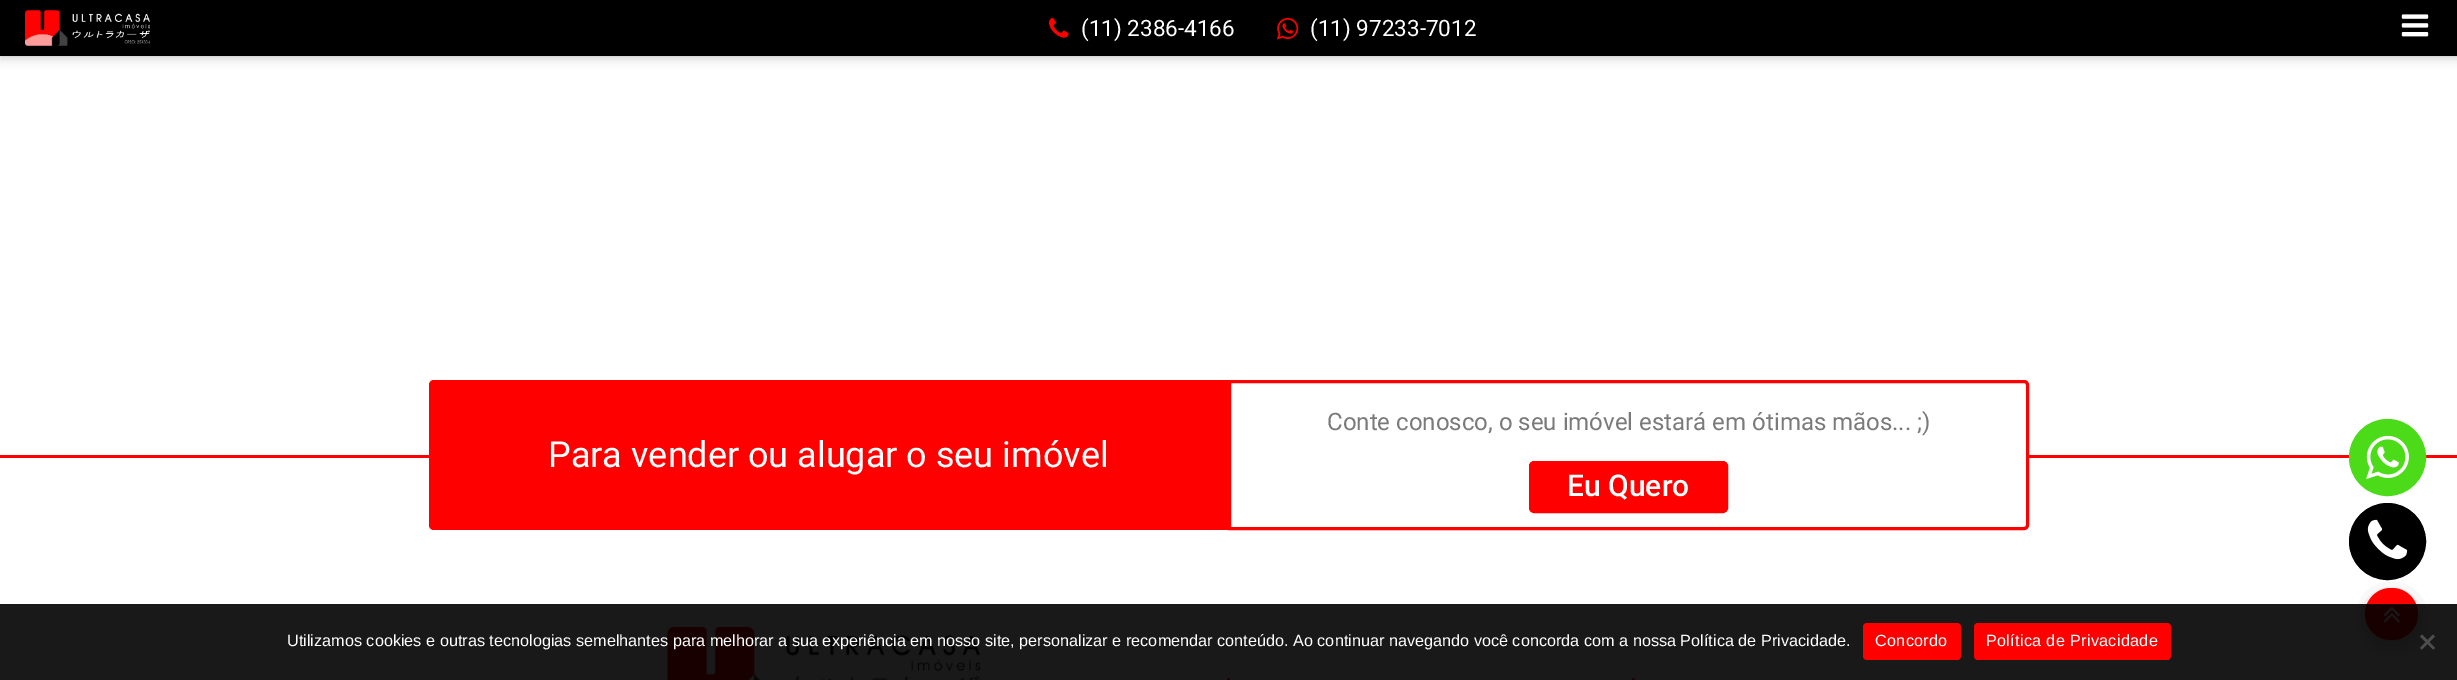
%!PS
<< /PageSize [2457 680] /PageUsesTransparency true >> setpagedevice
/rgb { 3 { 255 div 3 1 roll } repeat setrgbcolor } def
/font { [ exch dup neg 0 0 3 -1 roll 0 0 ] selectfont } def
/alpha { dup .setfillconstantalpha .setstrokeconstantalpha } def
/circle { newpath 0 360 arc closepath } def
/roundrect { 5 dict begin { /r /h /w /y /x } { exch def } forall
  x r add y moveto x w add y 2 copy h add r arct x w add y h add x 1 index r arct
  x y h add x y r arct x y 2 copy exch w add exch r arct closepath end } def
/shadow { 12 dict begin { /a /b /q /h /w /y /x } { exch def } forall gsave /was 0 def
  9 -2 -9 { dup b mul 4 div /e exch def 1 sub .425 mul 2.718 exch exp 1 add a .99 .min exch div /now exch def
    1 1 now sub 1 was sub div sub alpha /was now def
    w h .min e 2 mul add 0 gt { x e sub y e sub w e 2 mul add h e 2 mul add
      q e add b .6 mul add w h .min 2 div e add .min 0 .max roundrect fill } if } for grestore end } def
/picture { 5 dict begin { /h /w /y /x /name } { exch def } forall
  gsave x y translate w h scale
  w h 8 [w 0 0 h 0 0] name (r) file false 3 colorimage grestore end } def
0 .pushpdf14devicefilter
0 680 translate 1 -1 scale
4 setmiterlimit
255 255 255 rgb
0 0 2457 680 rectfill
0 0 0 rgb
0 0 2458 56 0 6 0.3 shadow
0 0 2457 56 rectfill
(img/1.rgb) 25 10 125 36 picture
(img/2.rgb) 1048 18 21 20 picture
(img/3.rgb) 1276 18 23 22 picture
(img/4.rgb) 2401 14 28 23 picture
255 0 0 rgb
0 455 2457 3 rectfill
434 380 moveto 1228 380 lineto 1228 530 lineto 434 530 lineto 431 530 429 528 429 525 curveto 429 385 lineto 429 382 431 380 434 380 curveto closepath fill
255 255 255 rgb
1229.5 381.5 moveto 2024 381.5 lineto 2026 381.5 2027.5 383 2027.5 385 curveto 2027.5 525 lineto 2027.5 527 2026 528.5 2024 528.5 curveto 1229.5 528.5 lineto closepath gsave fill grestore
255 0 0 rgb
3 setlinewidth
stroke
1529.5 461.5 198 51 4.5 roundrect gsave fill grestore
1 setlinewidth
stroke
76 219 24 rgb
2387.5 457.5 38 circle gsave fill grestore
stroke
(img/5.rgb) 2366 435 43 44 picture
0 0 0 rgb
2387.5 541.5 38 circle gsave fill grestore
stroke
(img/6.rgb) 2367 519 41 41 picture
30 30 30 rgb
2378 605 27 28 13.5 10.5 1 shadow
255 0 0 rgb
2365 588 53 52 26 roundrect fill
(img/7.rgb) 2383 606 17 17 picture
(img/8.rgb) 667 626 313 54 picture
(img/9.rgb) 1227 677 4 3 picture
(img/9.rgb) 1632 677 4 3 picture
0.9 alpha
0 0 0 rgb
0 604 2457 76 rectfill
1 alpha
255 0 0 rgb
1863 623 98 37 4 roundrect fill
1974 623 197 37 4 roundrect fill
77 77 77 rgb
2433 634.5 moveto 2435 636.5 lineto 2422 649.5 lineto 2420 648 lineto closepath fill
2420 636.5 moveto 2422 634.5 lineto 2435 648 lineto 2433 649.5 lineto closepath fill
/Roboto-Regular 22.5 font
255 255 255 rgb
1081 36 moveto (\(11\) 2386-4166) show
1310 36 moveto (\(11\) 97233-7012) show
/Roboto-Regular 36 font
548 467 moveto (Para vender ou alugar o seu imóvel) show
/Roboto-Regular 24 font
122 122 122 rgb
1327 430 moveto (Conte conosco, o seu imóvel estará em ótimas mãos... ;\)) show
/Roboto-Medium 30 font
255 255 255 rgb
1567 496 moveto (Eu Quero) show
/LiberationSans-Regular 16.25 font
287 646 moveto (Utilizamos cookies e outras tecnologias semelhantes para melhorar a sua experiência em nosso site, personalizar e recomendar conteúdo. Ao continuar navegando você concorda com a nossa Política de Privacidade.) show
1875 646 moveto 0.3 0 (Concordo) ashow
1986 646 moveto 0.3 0 (Política de Privacidade) ashow
.poppdf14devicefilter showpage
